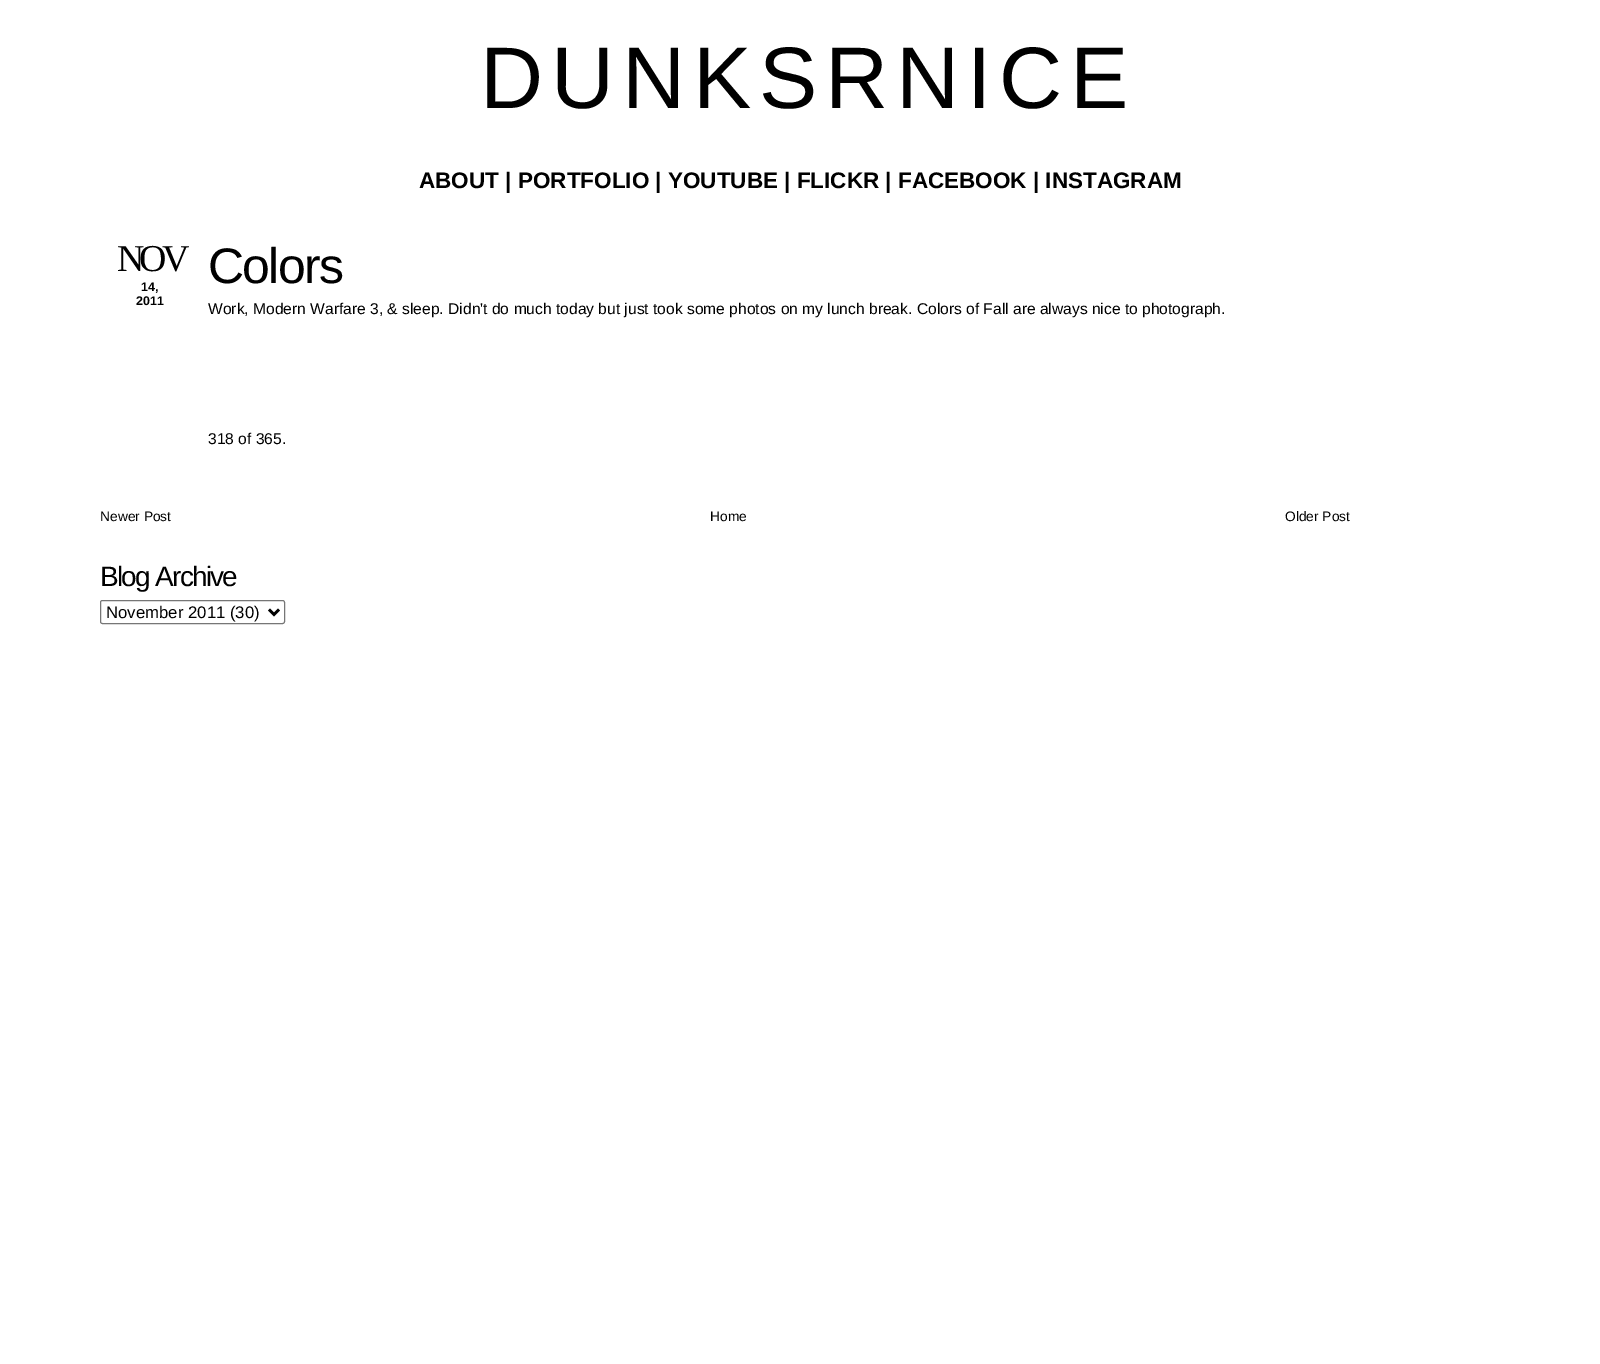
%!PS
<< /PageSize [1600 1364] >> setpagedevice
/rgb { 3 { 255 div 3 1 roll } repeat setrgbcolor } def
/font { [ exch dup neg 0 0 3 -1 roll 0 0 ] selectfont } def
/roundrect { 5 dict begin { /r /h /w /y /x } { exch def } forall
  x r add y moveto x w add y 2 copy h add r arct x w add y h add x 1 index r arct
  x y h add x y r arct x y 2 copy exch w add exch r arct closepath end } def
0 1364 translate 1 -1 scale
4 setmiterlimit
255 255 255 rgb
0 0 1600 1364 rectfill
118 118 118 rgb
100.5 600.5 184 23 2 roundrect stroke
0 0 0 rgb
2.5 setlinewidth
269 609.5 moveto 274 614.5 lineto 279 609.5 lineto stroke
/LiberationSans-Regular 87.5 font
480 108 moveto -8.3 0 (D U N K S R N I C E) ashow
/LiberationSans-Bold 22.5 font
419 188 moveto (ABOUT | PORTFOLIO | YOUTUBE | FLICKR | FACEBOOK | INSTAGRAM) show
/LiberationSerif-Regular 38 font
117 271 moveto -5 0 (NOV) ashow
/LiberationSans-Bold 12.5 font
141 291 moveto (14,) show
136 305 moveto (2011) show
/LiberationSans-Regular 50 font
208 283 moveto -1.75 0 (Colors) ashow
/LiberationSans-Regular 15.6 font
208 314 moveto (Work, Modern Warfare 3, & sleep. Didn't do much today but just took some photos on my lunch break. Colors of Fall are always nice to photograph.) show
208 444 moveto (318 of 365.) show
/LiberationSans-Regular 13.75 font
[
  [(Newer Post) 100 521]
  [(Home) 710 521]
  [(Older Post) 1285 521]
] { aload pop moveto show } forall
/LiberationSans-Regular 28 font
100 586 moveto -1.75 0 (Blog Archive) ashow
/LiberationSans-Regular 16.75 font
106 618 moveto (November 2011 \(30\)) show
showpage
